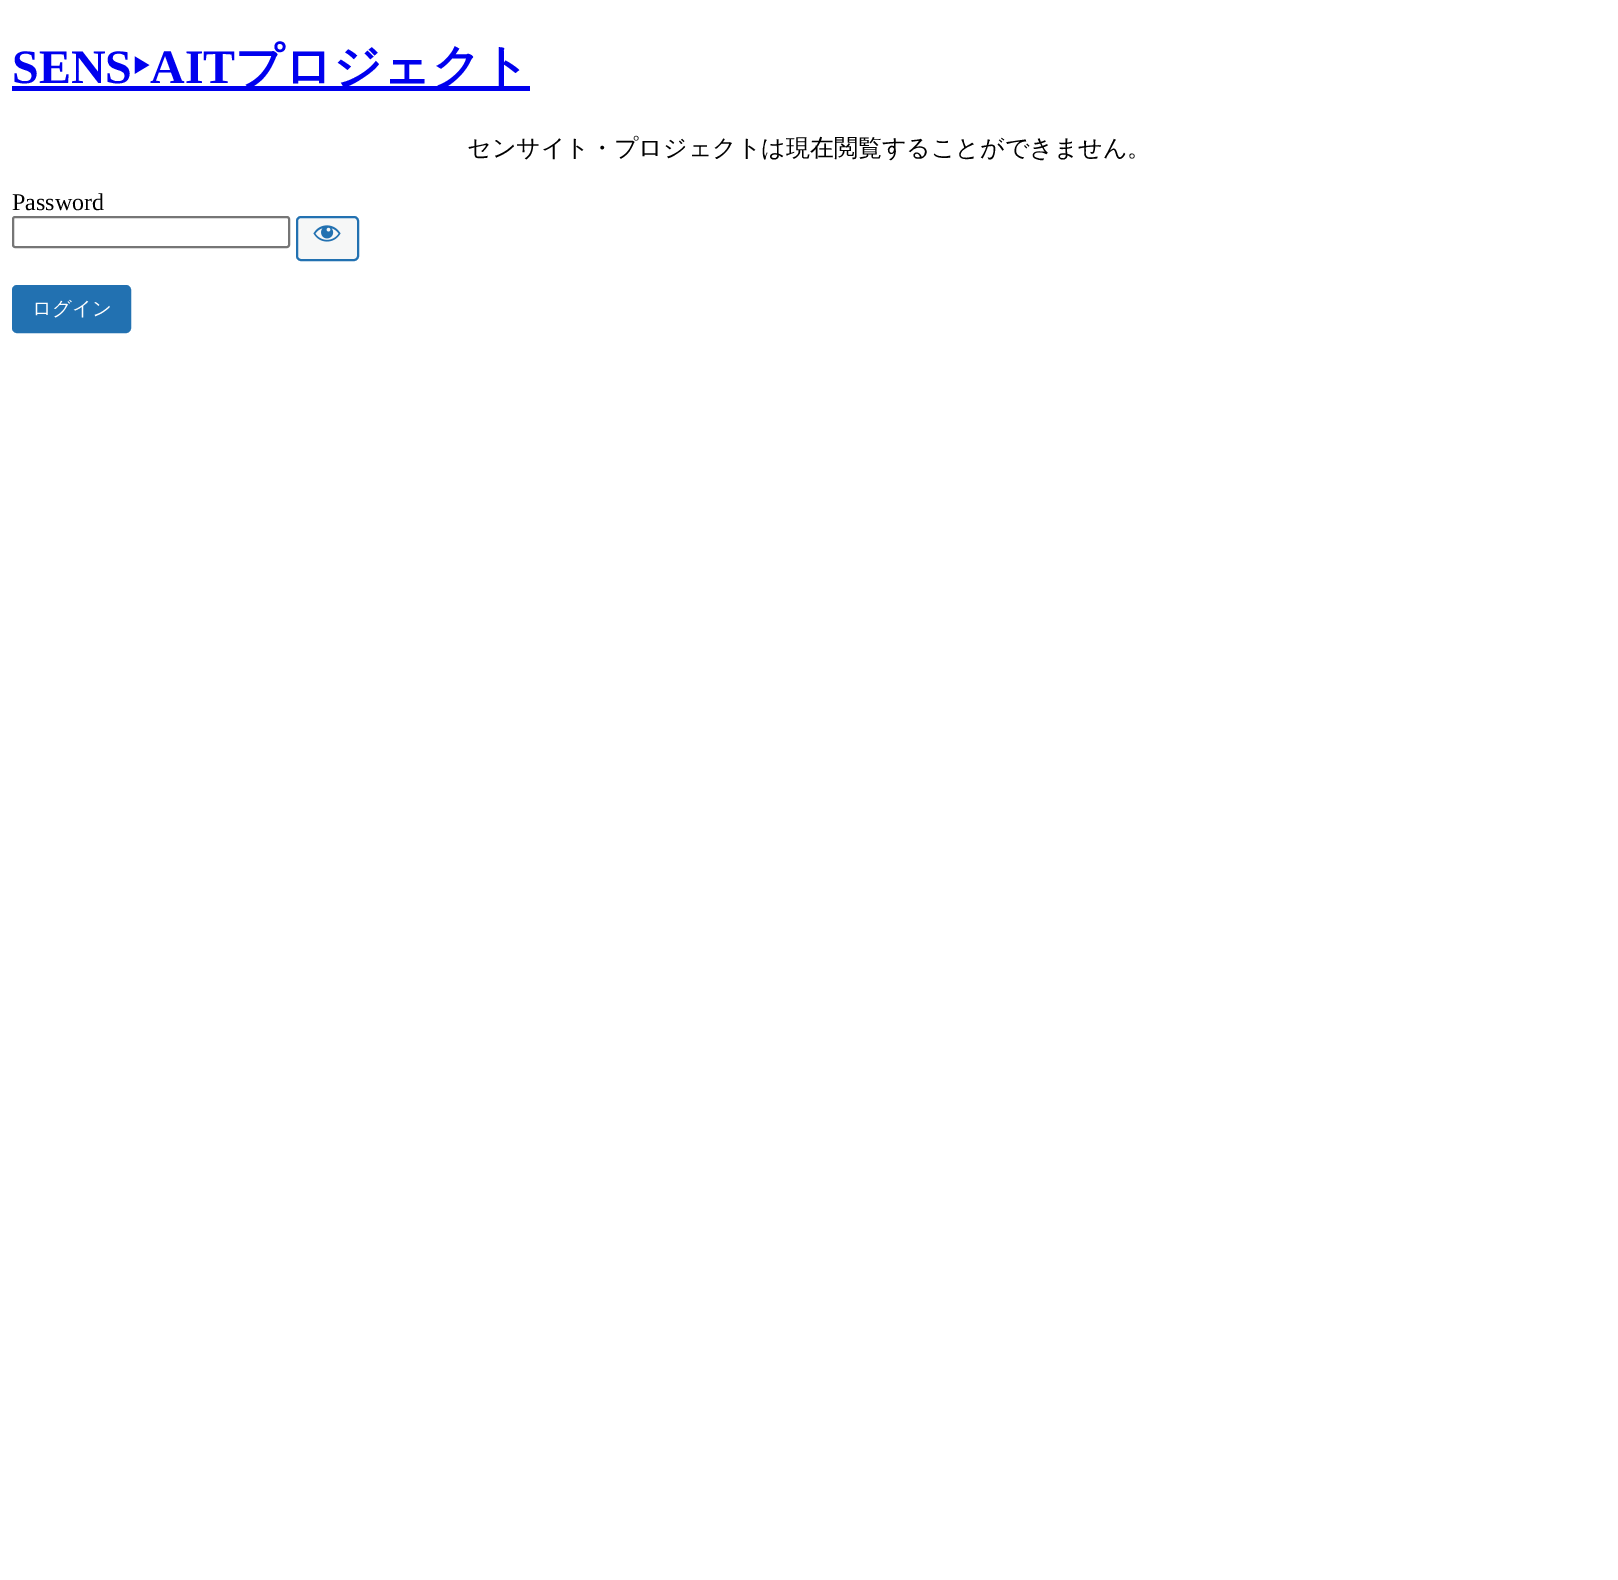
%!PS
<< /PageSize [1618 1580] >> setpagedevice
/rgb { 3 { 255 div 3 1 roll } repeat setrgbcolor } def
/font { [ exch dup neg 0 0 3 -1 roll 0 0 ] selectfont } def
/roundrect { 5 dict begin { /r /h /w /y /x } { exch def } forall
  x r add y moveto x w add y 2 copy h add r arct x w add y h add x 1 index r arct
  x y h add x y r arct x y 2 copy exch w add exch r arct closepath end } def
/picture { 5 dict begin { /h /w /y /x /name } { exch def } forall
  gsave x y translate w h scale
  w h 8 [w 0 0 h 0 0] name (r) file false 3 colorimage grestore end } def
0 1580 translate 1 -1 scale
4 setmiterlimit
255 255 255 rgb
0 0 1618 1580 rectfill
0 0 238 rgb
12 86 518 5 rectfill
118 118 118 rgb
2 setlinewidth
13 217 276 30 2 roundrect stroke
246 247 247 rgb
297 217 61 43 4 roundrect gsave fill grestore
34 113 177 rgb
stroke
(img/1.rgb) 313 225 28 17 picture
13 286 117 46 4 roundrect gsave fill grestore
stroke
/LiberationSerif-Bold 48 font
0 0 238 rgb
12 83 moveto (SENS) show
/NotoSans-Bold 48 font
132 83 moveto (‣) show
/LiberationSerif-Bold 48 font
150 83 moveto (AIT) show
/WenQuanYiZenHei-Bold 48 font
235 83 moveto (プロジェクト) show
/WenQuanYiZenHei-Medium 24 font
0 0 0 rgb
467 156 moveto (センサイト・プロジェクトは現在閲覧することができません。) show
/LiberationSerif-Regular 24 font
12 210 moveto (Password) show
/WenQuanYiZenHei-Medium 19.5 font
255 255 255 rgb
32 315 moveto (ログイン) show
showpage
